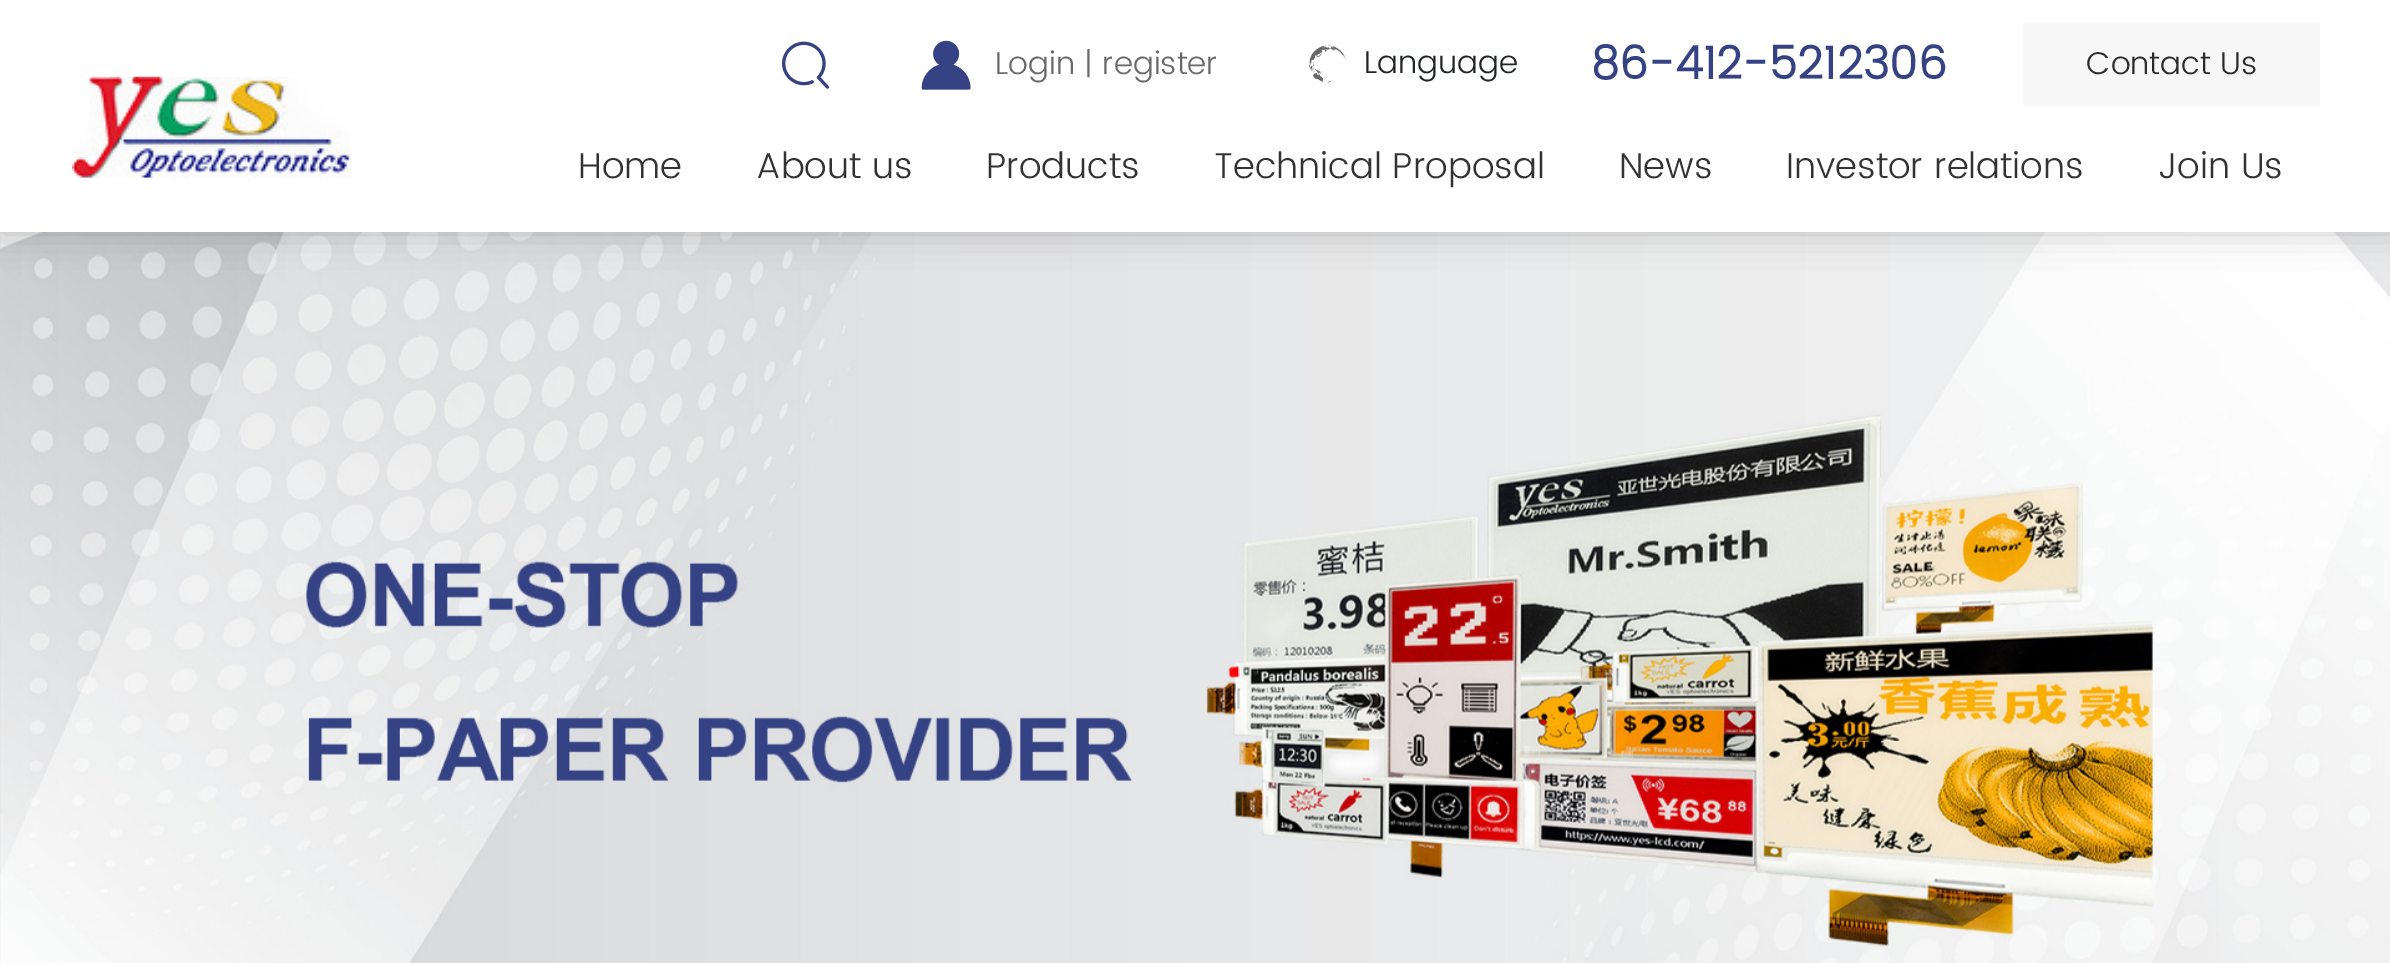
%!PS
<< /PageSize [2390 963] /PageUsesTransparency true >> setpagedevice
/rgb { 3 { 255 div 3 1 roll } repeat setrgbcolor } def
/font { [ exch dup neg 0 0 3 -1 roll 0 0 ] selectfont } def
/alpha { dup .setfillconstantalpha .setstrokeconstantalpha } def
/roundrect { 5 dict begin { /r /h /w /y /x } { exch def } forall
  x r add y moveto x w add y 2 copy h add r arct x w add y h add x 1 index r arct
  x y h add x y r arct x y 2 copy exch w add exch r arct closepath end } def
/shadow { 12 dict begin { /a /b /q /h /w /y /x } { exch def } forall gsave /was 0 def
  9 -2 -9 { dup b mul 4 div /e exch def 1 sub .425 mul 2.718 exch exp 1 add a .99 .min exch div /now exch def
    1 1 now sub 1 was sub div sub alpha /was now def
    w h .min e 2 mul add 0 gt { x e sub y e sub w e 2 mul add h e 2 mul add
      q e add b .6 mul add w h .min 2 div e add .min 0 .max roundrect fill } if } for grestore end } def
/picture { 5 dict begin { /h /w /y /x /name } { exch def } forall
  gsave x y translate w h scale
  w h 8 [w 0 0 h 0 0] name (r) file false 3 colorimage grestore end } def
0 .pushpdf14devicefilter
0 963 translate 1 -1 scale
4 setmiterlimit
255 255 255 rgb
0 0 2390 963 rectfill
(img/5.rgb) 0 232 2390 731 picture
0 0 0 rgb
0 0 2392 232 0 17 0.2 shadow
255 255 255 rgb
0 0 2390 232 rectfill
(img/1.rgb) 72 76 279 102 picture
(img/2.rgb) 782 41 48 48 picture
(img/3.rgb) 921 40 50 50 picture
(img/4.rgb) 1309 45 37 40 picture
247 247 247 rgb
2023 23 297 83 rectfill
/Poppins-Light 31.5 font
105 105 105 rgb
995 74 moveto (Login | register) show
33 37 41 rgb
1364 73 moveto (Language) show
/Poppins-Bold 45 font
53 67 133 rgb
1591 79 moveto (86-412-5212306) show
/Poppins-Light 31.5 font
42 42 42 rgb
2086 74 moveto (Contact Us) show
/Poppins-Light 36 font
51 51 51 rgb
[
  [(Home) 578 178]
  [(About us) 756 178]
  [(Products) 986 178]
  [(Technical Proposal) 1214 178]
  [(News) 1619 178]
  [(Investor relations) 1786 178]
  [(Join Us) 2158 178]
] { aload pop moveto show } forall
.poppdf14devicefilter showpage
